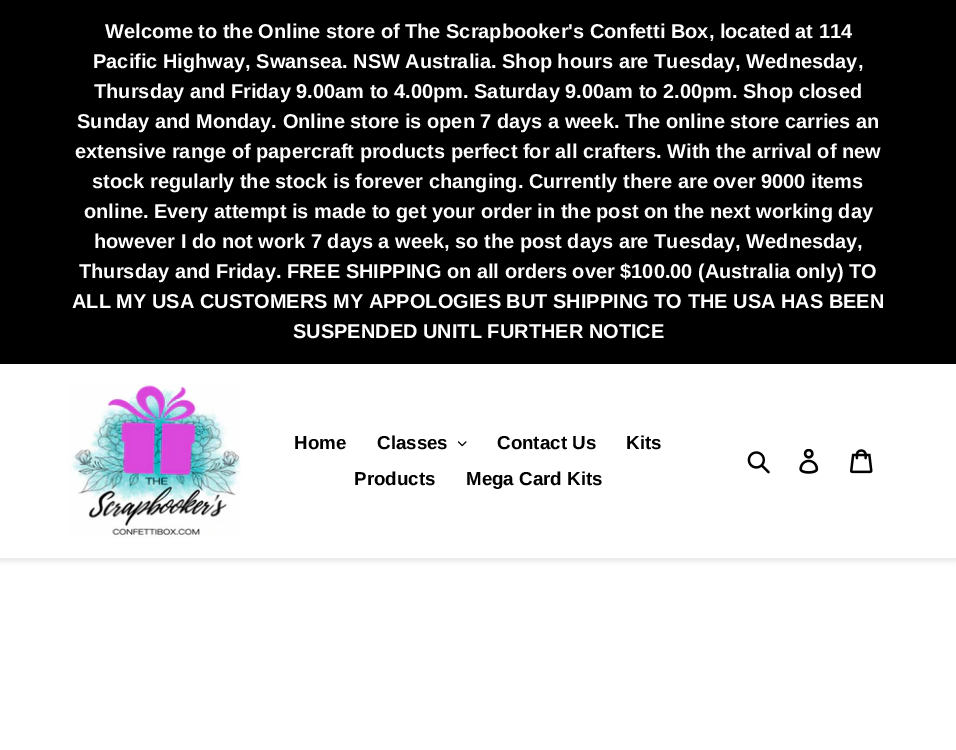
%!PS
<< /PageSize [956 750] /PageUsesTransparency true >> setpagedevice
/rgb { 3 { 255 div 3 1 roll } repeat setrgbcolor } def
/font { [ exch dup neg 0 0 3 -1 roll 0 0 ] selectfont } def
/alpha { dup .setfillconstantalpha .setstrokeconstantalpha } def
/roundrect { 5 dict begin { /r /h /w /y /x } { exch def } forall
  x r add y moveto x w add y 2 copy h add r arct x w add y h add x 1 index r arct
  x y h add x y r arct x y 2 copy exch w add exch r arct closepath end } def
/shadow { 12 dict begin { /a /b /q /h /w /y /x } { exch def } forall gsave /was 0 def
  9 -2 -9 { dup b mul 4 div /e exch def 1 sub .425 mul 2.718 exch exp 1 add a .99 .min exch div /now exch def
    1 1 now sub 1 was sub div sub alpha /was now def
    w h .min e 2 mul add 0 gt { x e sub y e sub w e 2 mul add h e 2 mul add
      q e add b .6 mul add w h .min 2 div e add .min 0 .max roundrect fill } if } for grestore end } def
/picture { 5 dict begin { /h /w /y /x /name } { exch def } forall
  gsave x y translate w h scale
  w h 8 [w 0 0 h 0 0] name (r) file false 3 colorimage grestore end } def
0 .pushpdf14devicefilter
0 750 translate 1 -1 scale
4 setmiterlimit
255 255 255 rgb
0 0 956 750 rectfill
0 0 0 rgb
0 3 956 558 0 2.5 0.1 shadow
[
  [0 0 956 364 0 0 0]
  [0 364 956 194 255 255 255]
  [0 558 956 1 235 235 235]
] { aload pop rgb rectfill } forall
(img/1.rgb) 69 383 172 155 picture
(img/2.rgb) 458 441 9 6 picture
(img/3.rgb) 747 451 23 23 picture
(img/4.rgb) 799 449 20 25 picture
(img/5.rgb) 850 449 23 25 picture
/LiberationSans-Bold 20 font
255 255 255 rgb
[
  [(Welcome to the Online store of The Scrapbooker's Confetti Box, located at 114) 105 38]
  [(Pacific Highway, Swansea. NSW Australia. Shop hours are Tuesday, Wednesday,) 93 68]
  [(Thursday and Friday 9.00am to 4.00pm. Saturday 9.00am to 2.00pm. Shop closed) 94 98]
  [(Sunday and Monday. Online store is open 7 days a week. The online store carries an) 77 128]
  [(extensive range of papercraft products perfect for all crafters. With the arrival of new) 75 158]
  [(stock regularly the stock is forever changing. Currently there are over 9000 items) 92 188]
  [(online. Every attempt is made to get your order in the post on the next working day) 84 218]
  [(however I do not work 7 days a week, so the post days are Tuesday, Wednesday,) 94 248]
  [(Thursday and Friday. FREE SHIPPING on all orders over $100.00 \(Australia only\) TO) 79 278]
  [(ALL MY USA CUSTOMERS MY APPOLOGIES BUT SHIPPING TO THE USA HAS BEEN) 72 308]
  [(SUSPENDED UNITL FURTHER NOTICE) 293 338]
] { aload pop moveto show } forall
/LiberationSans-Bold 18.75 font
0 0 0 rgb
[
  [(Home) 294 449]
  [(Classes) 377 449]
  [(Contact Us) 497 449]
  [(Kits) 626 449]
  [(Products) 354 485]
  [(Mega Card Kits) 466 485]
] { aload pop moveto show } forall
.poppdf14devicefilter showpage
